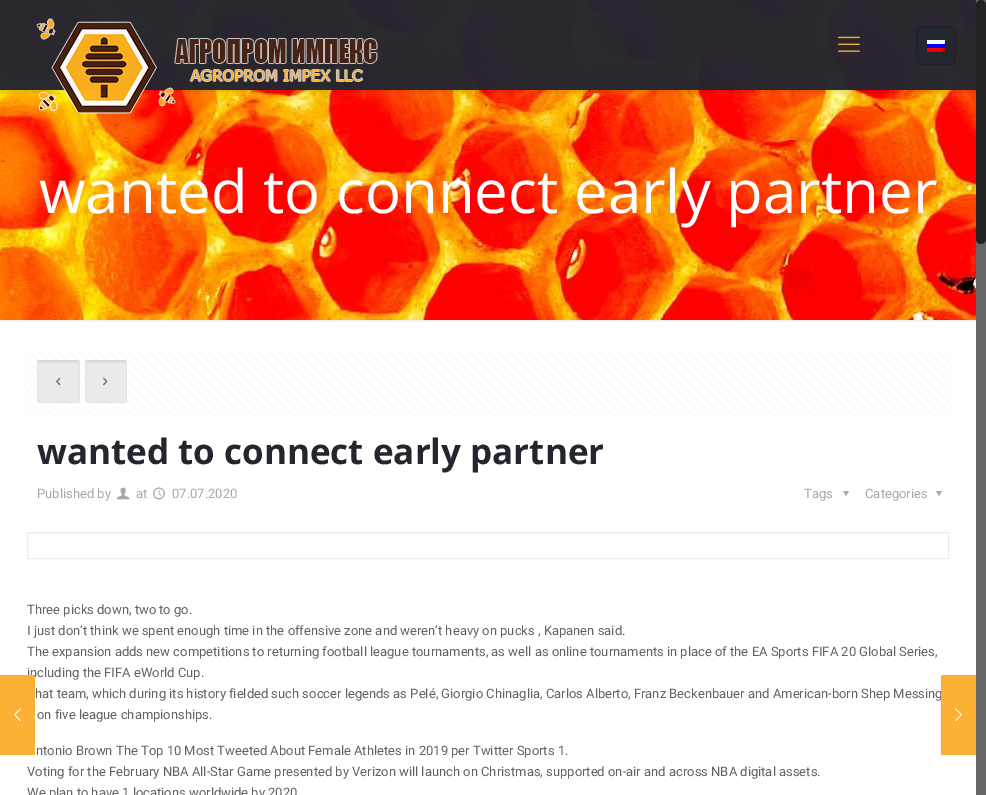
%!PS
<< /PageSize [986 795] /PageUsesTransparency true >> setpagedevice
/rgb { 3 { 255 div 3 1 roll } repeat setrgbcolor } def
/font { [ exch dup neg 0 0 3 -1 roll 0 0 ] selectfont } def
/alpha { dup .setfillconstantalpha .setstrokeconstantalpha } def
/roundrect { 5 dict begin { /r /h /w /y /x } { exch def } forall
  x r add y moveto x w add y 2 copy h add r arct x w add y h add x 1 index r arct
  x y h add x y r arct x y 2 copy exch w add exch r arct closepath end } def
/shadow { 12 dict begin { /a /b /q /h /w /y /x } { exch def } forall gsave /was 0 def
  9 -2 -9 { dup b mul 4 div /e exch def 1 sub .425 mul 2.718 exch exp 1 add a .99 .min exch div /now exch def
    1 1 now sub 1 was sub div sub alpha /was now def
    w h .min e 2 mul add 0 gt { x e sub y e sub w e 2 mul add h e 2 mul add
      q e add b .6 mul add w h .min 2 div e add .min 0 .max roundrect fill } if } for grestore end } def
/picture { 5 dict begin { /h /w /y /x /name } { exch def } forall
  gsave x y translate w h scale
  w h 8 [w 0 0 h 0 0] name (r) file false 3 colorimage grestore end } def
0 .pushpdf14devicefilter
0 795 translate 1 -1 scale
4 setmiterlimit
255 255 255 rgb
0 0 986 795 rectfill
(img/2.rgb) 0 0 976 320 picture
gsave
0 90 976 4 rectclip
0 0 0 rgb
0 2 986 90 0 2.5 0.1 shadow
grestore
0.97 alpha
35 37 47 rgb
0 0 976 90 rectfill
1 alpha
(img/3.rgb) 36 18 342 96 picture
(img/4.rgb) 838 36 22 16 picture
0.97 alpha
916 26 40 39 5 roundrect fill
0.1 alpha
0 0 0 rgb
916.5 26.5 39 38 4.5 roundrect stroke
1 alpha
(img/5.rgb) 927 40 18 12 picture
(img/6.rgb) 0 320 976 2 picture
(img/7.rgb) 27 350 922 63 picture
247 247 247 rgb
37 360 43 43 5 roundrect fill
0.05 alpha
0 0 0 rgb
38 360 41 3 rectfill
0.03 alpha
37.5 360.5 42 42 rectstroke
0.05 alpha
37 360 43 43 rectfill
1 alpha
(img/8.rgb) 56 377 5 9 picture
247 247 247 rgb
85 360 42 43 5 roundrect fill
0.05 alpha
0 0 0 rgb
86 360 40 3 rectfill
0.03 alpha
85.5 360.5 41 42 rectstroke
0.05 alpha
85 360 42 43 rectfill
1 alpha
(img/9.rgb) 103 377 5 9 picture
(img/10.rgb) 117 487 13 13 picture
(img/11.rgb) 153 487 12 13 picture
168 168 168 rgb
849 491 moveto 846 496 lineto 843 491 lineto closepath fill
942 491 moveto 939 496 lineto 936 491 lineto closepath fill
235 235 235 rgb
27.5 532.5 921 26 rectstroke
102 102 102 rgb
976 0 10 795 rectfill
34 34 34 rgb
976 0 10 244 5 roundrect fill
/OpenSans-Regular 60 font
255 255 255 rgb
39 213 moveto (wanted to connect early partner) show
/OpenSans-Bold 35 font
35 37 47 rgb
37 464 moveto (wanted to connect early partner) show
/Roboto-Regular 13 font
168 168 168 rgb
[
  [(Published by) 37 498]
  [(at) 136 498]
  [(07.07.2020) 172 498]
  [(Tags) 804 498]
  [(Categories) 865 498]
] { aload pop moveto show } forall
98 98 98 rgb
[
  [(Three picks down, two to go.) 27 614]
  [(I just don’t think we spent enough time in the offensive zone and weren’t heavy on pucks , Kapanen said.) 27 635]
  [(The expansion adds new competitions to returning football league tournaments, as well as online tournaments in place of the EA Sports FIFA 20 Global Series,) 27 656]
  [(including the FIFA eWorld Cup.) 27 677]
] { aload pop moveto show } forall
252 177 52 rgb
0 675 35 80 rectfill
(img/1.rgb) 14 708 7 14 picture
98 98 98 rgb
[
  [(hat team, which during its history fielded such soccer legends as Pelé, Giorgio Chinaglia, Carlos Alberto, Franz Beckenbauer and American-born Shep Messing) 35 698]
  [(on five league championships.) 37 719]
  [(ntonio Brown The Top 10 Most Tweeted About Female Athletes in 2019 per Twitter Sports 1.) 36 755]
  [(Voting for the February NBA All-Star Game presented by Verizon will launch on Christmas, supported on-air and across NBA digital assets.) 27 776]
  [(We plan to have 1 locations worldwide by 2020) 27 797]
] { aload pop moveto show } forall
252 177 52 rgb
941 675 35 80 rectfill
(img/12.rgb) 955 708 7 14 picture
.poppdf14devicefilter showpage
